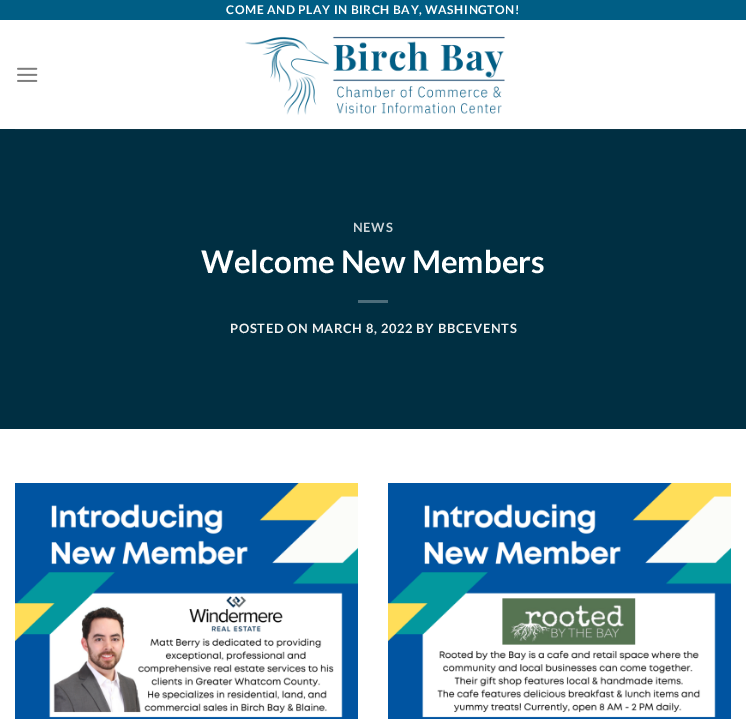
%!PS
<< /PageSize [746 719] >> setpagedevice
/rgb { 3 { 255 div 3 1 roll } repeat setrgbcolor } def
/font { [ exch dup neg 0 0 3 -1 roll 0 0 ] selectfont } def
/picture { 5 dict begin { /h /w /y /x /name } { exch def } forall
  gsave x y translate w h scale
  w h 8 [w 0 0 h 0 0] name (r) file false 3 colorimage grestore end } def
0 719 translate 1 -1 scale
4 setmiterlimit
255 255 255 rgb
0 0 746 719 rectfill
0 94 133 rgb
0 0 746 20 rectfill
(img/1.rgb) 17 67 21 15 picture
(img/2.rgb) 245 36 260 79 picture
[
  [0 129 746 300 0 47 66]
  [15 129 716 1 12 54 71]
  [358 300 30 3 77 109 123]
] { aload pop rgb rectfill } forall
(img/3.rgb) 15 483 343 236 picture
(img/4.rgb) 388 483 343 236 picture
/Lato-Bold 12 font
255 255 255 rgb
226 14 moveto 0.6 0 (COME AND PLAY IN BIRCH BAY, WASHINGTON!) ashow
/Lato-Bold 12.9 font
204 213 217 rgb
353 232 moveto 0.65 0 (NEWS) ashow
/Lato-Bold 31.25 font
255 255 255 rgb
201 273 moveto (Welcome New Members) show
/Lato-Bold 12.9 font
241 241 241 rgb
230 333 moveto 0.65 0 (POSTED ON MARCH 8, 2022 BY BBCEVENTS) ashow
showpage
